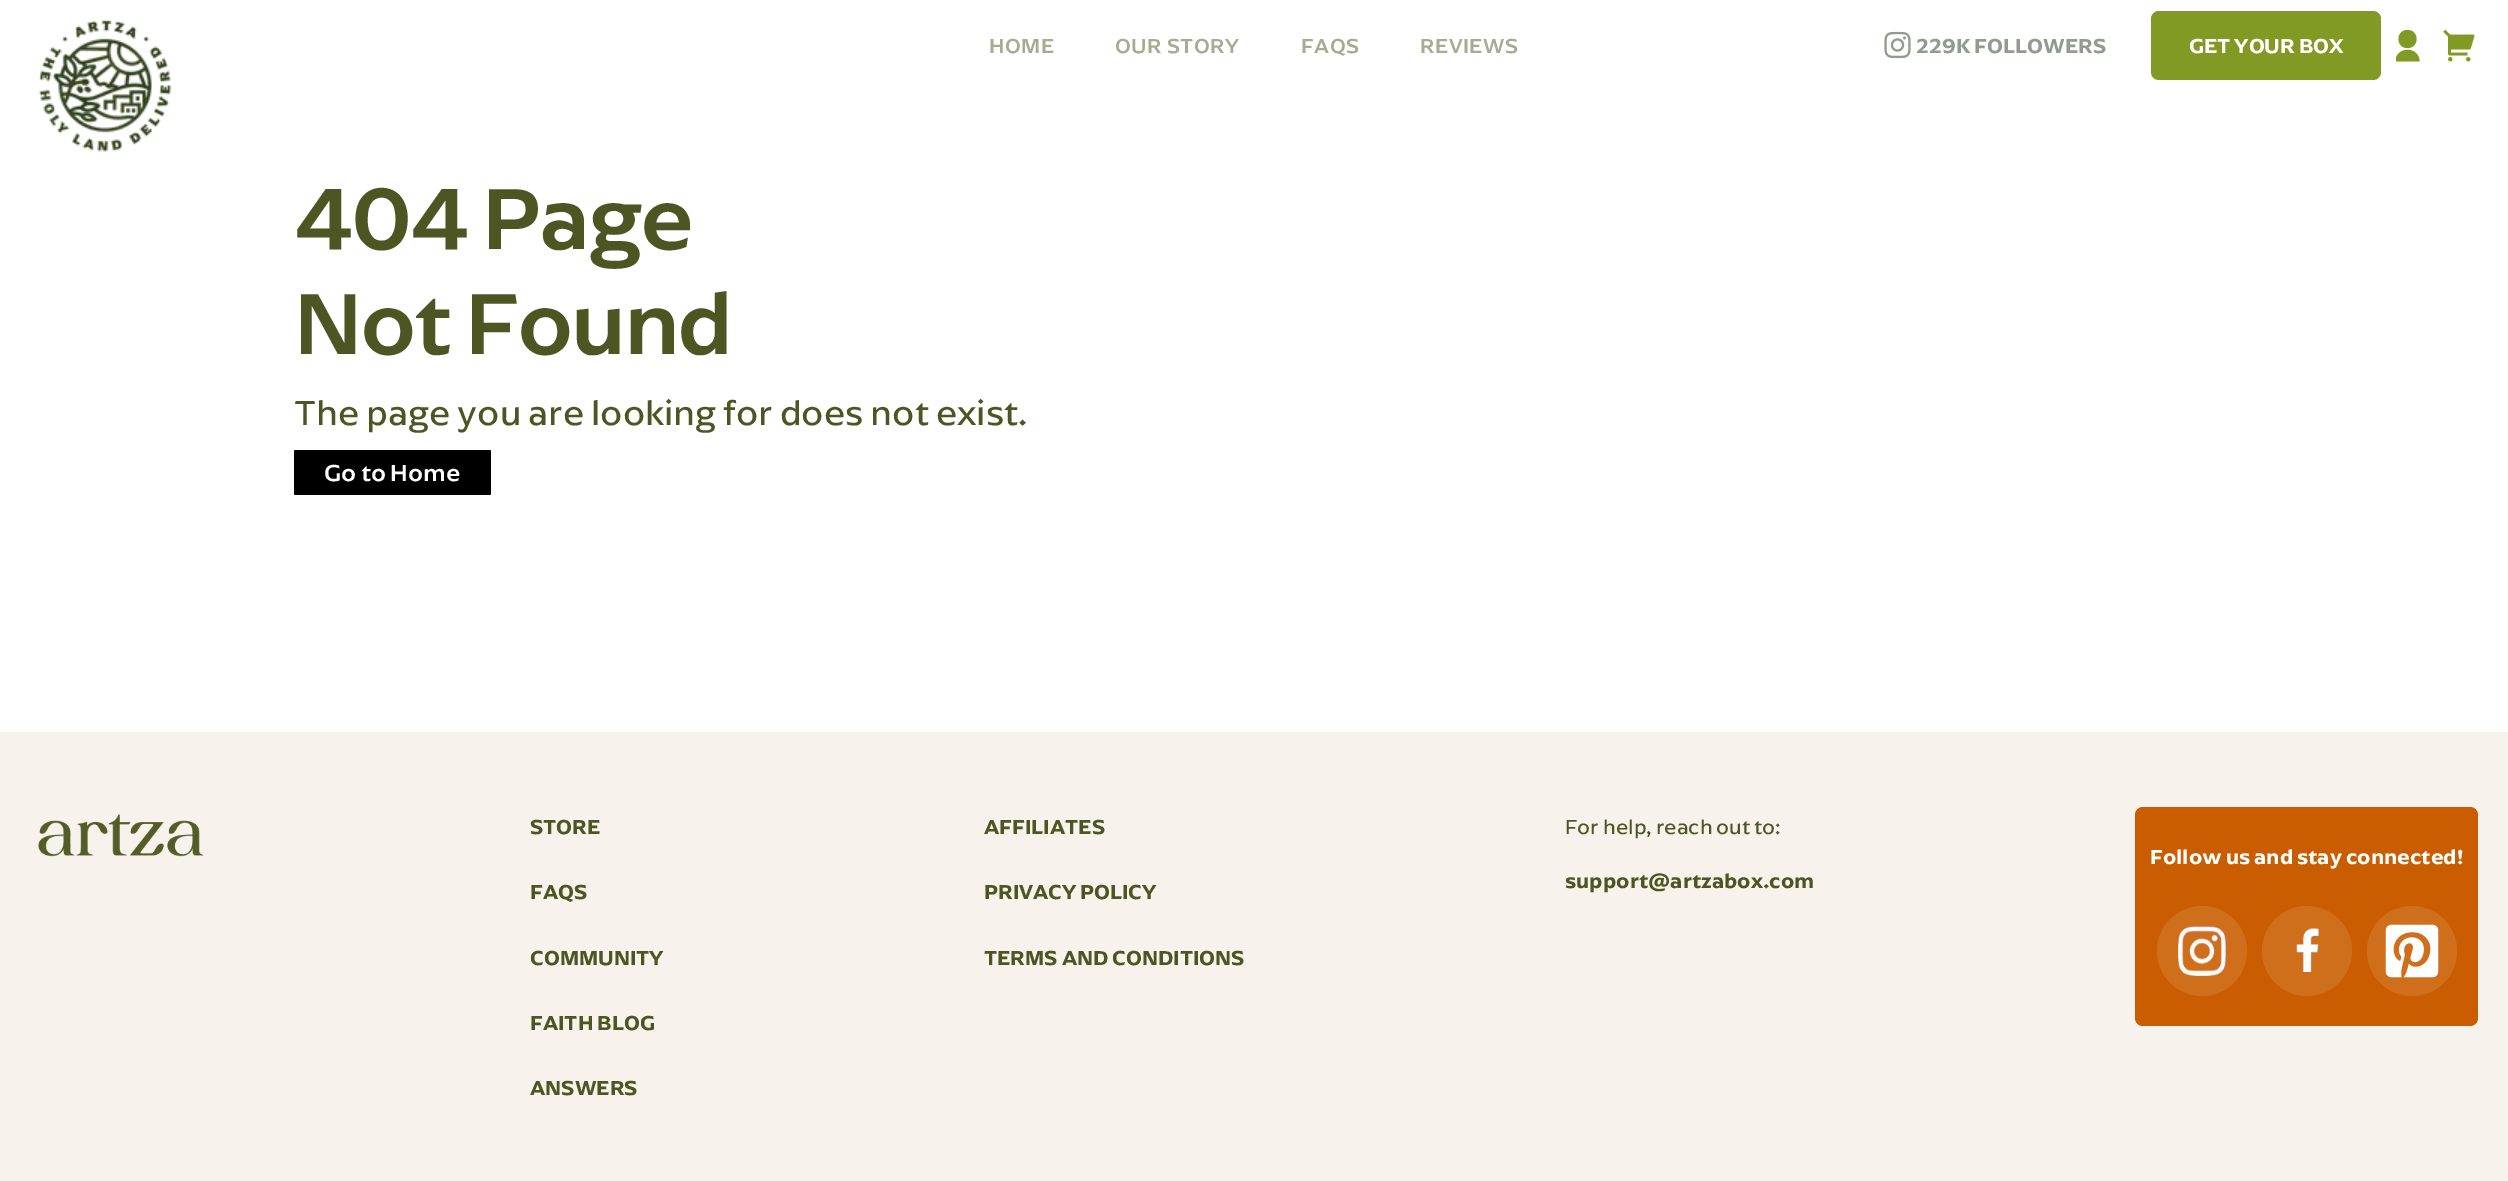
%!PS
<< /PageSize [2508 1181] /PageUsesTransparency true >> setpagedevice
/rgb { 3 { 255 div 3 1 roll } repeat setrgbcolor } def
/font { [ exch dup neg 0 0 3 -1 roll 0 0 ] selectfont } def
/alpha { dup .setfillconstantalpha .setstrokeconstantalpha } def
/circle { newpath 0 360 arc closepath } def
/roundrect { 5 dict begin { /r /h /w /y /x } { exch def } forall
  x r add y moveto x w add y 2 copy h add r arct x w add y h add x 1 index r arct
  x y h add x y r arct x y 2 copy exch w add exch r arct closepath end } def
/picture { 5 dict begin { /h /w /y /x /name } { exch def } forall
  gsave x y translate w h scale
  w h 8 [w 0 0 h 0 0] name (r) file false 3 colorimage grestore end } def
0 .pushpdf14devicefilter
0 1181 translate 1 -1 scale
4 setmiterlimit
255 255 255 rgb
0 0 2508 1181 rectfill
(img/1.rgb) 38 19 134 133 picture
(img/2.rgb) 52 38 100 95 picture
(img/3.rgb) 1884 31 27 28 picture
129 154 35 rgb
2151 11 230 69 8 roundrect fill
gsave
2396 30 24 32 rectclip
2395.5 61.5 moveto 2395.5 46 2419.5 46 2419.5 61.5 curveto closepath 2407.5 48 moveto 2395.5 48 2395.5 30 2407.5 30 curveto 2419.5 30 2419.5 48 2407.5 48 curveto closepath fill
grestore
(img/4.rgb) 2443 29 32 33 picture
0 0 0 rgb
294 450 197 45 1.5 roundrect fill
247 243 236 rgb
0 732 2508 449 rectfill
(img/5.rgb) 38 814 166 43 picture
202 93 1 rgb
2135 807 343 219 8 roundrect fill
(img/6.rgb) 2178 926 48 50 picture
0.1 alpha
255 255 255 rgb
2202 951 45 circle fill
1 alpha
(img/7.rgb) 2296 928 23 44 picture
0.1 alpha
2307 951 45 circle fill
1 alpha
(img/8.rgb) 2385 924 54 54 picture
0.1 alpha
2412 951 45 circle fill
/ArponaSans-Medium 21 font
1 alpha
166 171 145 rgb
989 53 moveto 0.5 0 (HOME) ashow
1115 53 moveto 0.5 0 (OUR STORY) ashow
1301 53 moveto 0.5 0 (FAQS) ashow
1420 53 moveto 0.5 0 (REVIEWS) ashow
/ArponaSans-SemiBold 21 font
147 155 143 rgb
1916 53 moveto (229K FOLLOWERS) show
255 255 255 rgb
2189 53 moveto (GET YOUR BOX) show
/ArponaSans-Medium 90 font
77 86 35 rgb
294 249 moveto -2.25 0 (404 Page) ashow
294 354 moveto -2.25 0 (Not Found) ashow
/ArponaSans-Regular 36 font
294 425 moveto (The page you are looking for does not exist.) show
/ArponaSans-Medium 24 font
255 255 255 rgb
324 481 moveto (Go to Home) show
/ArponaSans-SemiBold 21 font
77 86 35 rgb
[
  [(STORE) 530 834]
  [(FAQS) 530 899]
  [(COMMUNITY) 530 965]
  [(FAITH BLOG) 530 1030]
  [(ANSWERS) 530 1095]
  [(AFFILIATES) 984 834]
  [(PRIVACY POLICY) 984 899]
  [(TERMS AND CONDITIONS) 984 965]
] { aload pop moveto show } forall
/ArponaSans-Regular 21 font
1565 834 moveto (For help, reach out to:) show
/ArponaSans-SemiBold 21 font
1565 888 moveto (support@artzabox.com) show
255 255 255 rgb
2150 864 moveto (Follow us and stay connected!) show
.poppdf14devicefilter showpage
